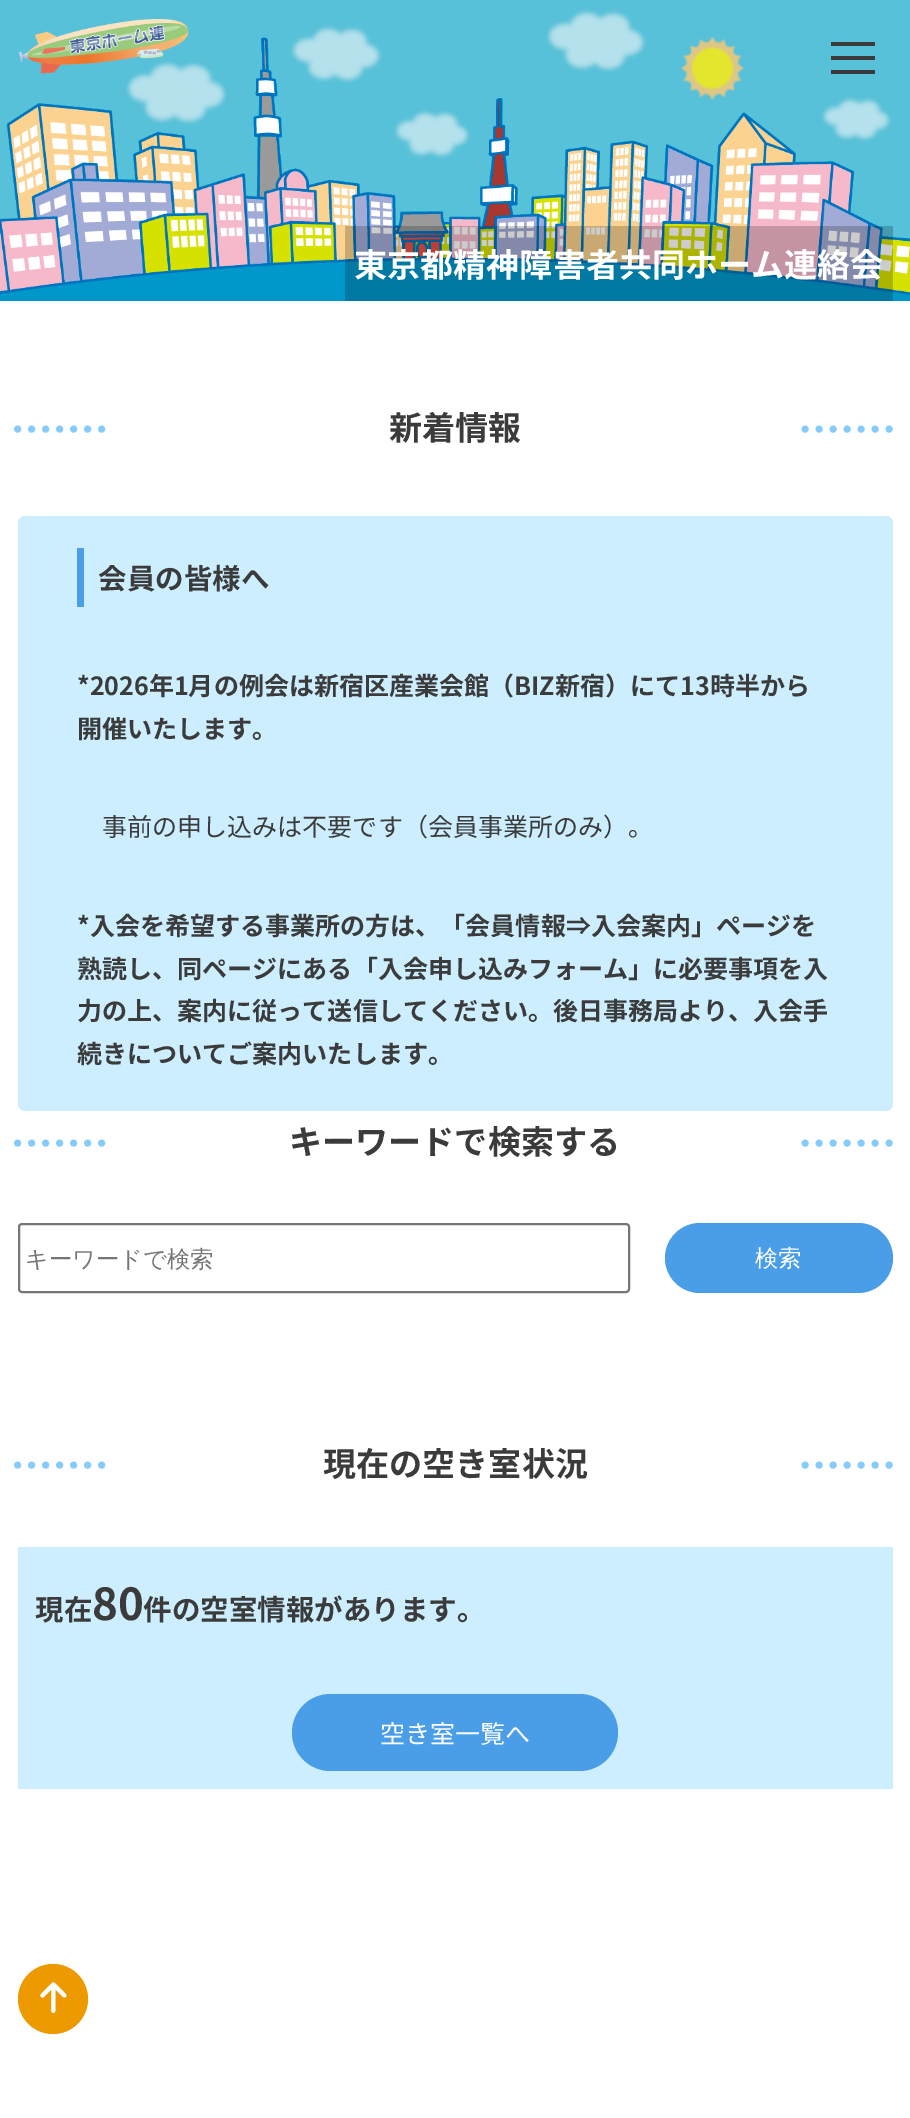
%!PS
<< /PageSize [910 2118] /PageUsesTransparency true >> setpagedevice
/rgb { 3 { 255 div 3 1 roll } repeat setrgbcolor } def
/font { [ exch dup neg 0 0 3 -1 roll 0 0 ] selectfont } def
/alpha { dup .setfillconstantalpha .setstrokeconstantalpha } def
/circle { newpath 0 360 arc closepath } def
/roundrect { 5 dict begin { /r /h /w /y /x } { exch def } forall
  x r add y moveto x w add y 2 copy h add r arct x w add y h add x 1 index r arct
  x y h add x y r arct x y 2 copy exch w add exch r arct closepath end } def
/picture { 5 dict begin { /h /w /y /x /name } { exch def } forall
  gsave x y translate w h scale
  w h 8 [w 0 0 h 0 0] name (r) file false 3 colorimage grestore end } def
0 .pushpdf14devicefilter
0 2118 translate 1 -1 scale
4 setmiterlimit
255 255 255 rgb
0 0 910 2118 rectfill
(img/1.rgb) 0 0 910 301 picture
[
  [831 56 44 4 59 59 59]
  [831 42 44 4 59 59 59]
  [831 70 44 4 59 59 59]
] { aload pop rgb rectfill } forall
0.2 alpha
[
  [345 226 548 75 0 0 0]
] { aload pop rgb rectfill } forall
1 alpha
134 203 250 rgb
7 setlinewidth
1 setlinecap
[0 14] 0 setdash
17.5 429 moveto 105 429 lineto stroke
805 429 moveto 892.5 429 lineto stroke
204 238 255 rgb
18 516 875 595 7 roundrect fill
74 158 231 rgb
77 548 7 59 rectfill
134 203 250 rgb
17.5 1143 moveto 105 1143 lineto stroke
805 1143 moveto 892.5 1143 lineto stroke
118 118 118 rgb
2 setlinewidth
0 setlinecap
[] 0 setdash
19 1224 610 68 3 roundrect stroke
74 158 231 rgb
665 1223 228 70 35 roundrect fill
134 203 250 rgb
7 setlinewidth
1 setlinecap
[0 14] 0 setdash
17.5 1465 moveto 105 1465 lineto stroke
805 1465 moveto 892.5 1465 lineto stroke
204 238 255 rgb
18 1547 875 242 rectfill
74 158 231 rgb
292 1694 326 77 38.5 roundrect fill
237 153 0 rgb
53 1999 35 circle fill
(img/2.rgb) 40 1982 27 31 picture
/NotoSansJP-Bold 33.1 font
255 255 255 rgb
354 277 moveto (東京都精神障害者共同ホーム連絡会) show
59 59 59 rgb
389 440 moveto (新着情報) show
/NotoSansJP-Bold 28.5 font
98 589 moveto (会員の皆様へ) show
/NotoSansJP-Bold 25.05 font
77 695 moveto (*2026年1月の例会は新宿区産業会館（BIZ新宿）にて13時半から) show
77 738 moveto (開催いたします。) show
/NotoSansJP-Regular 25.05 font
102 836 moveto (事前の申し込みは不要です（会員事業所のみ）。) show
/NotoSansJP-Bold 25.05 font
[
  [(*入会を希望する事業所の方は、「会員情報⇒入会案内」ページを) 77 935]
  [(熟読し、同ページにある「入会申し込みフォーム」に必要事項を入) 77 978]
  [(力の上、案内に従って送信してください。後日事務局より、入会手) 77 1020]
  [(続きについてご案内いたします。) 77 1063]
] { aload pop moveto show } forall
/NotoSansJP-Bold 33.1 font
289 1154 moveto (キーワードで検索する) show
/WenQuanYiZenHei-Medium 23.25 font
117 117 117 rgb
25 1267 moveto (キーワードで検索) show
255 255 255 rgb
755 1266 moveto (検索) show
/NotoSansJP-Bold 33.1 font
59 59 59 rgb
323 1476 moveto (現在の空き室状況) show
/NotoSansJP-Bold 28.5 font
35 1620 moveto (現在) show
/NotoSansJP-Bold 44 font
92 1620 moveto (80) show
/NotoSansJP-Bold 28.5 font
143 1620 moveto (件の空室情報があります。) show
/NotoSansJP-Regular 25.05 font
255 255 255 rgb
380 1743 moveto (空き室一覧へ) show
.poppdf14devicefilter showpage
